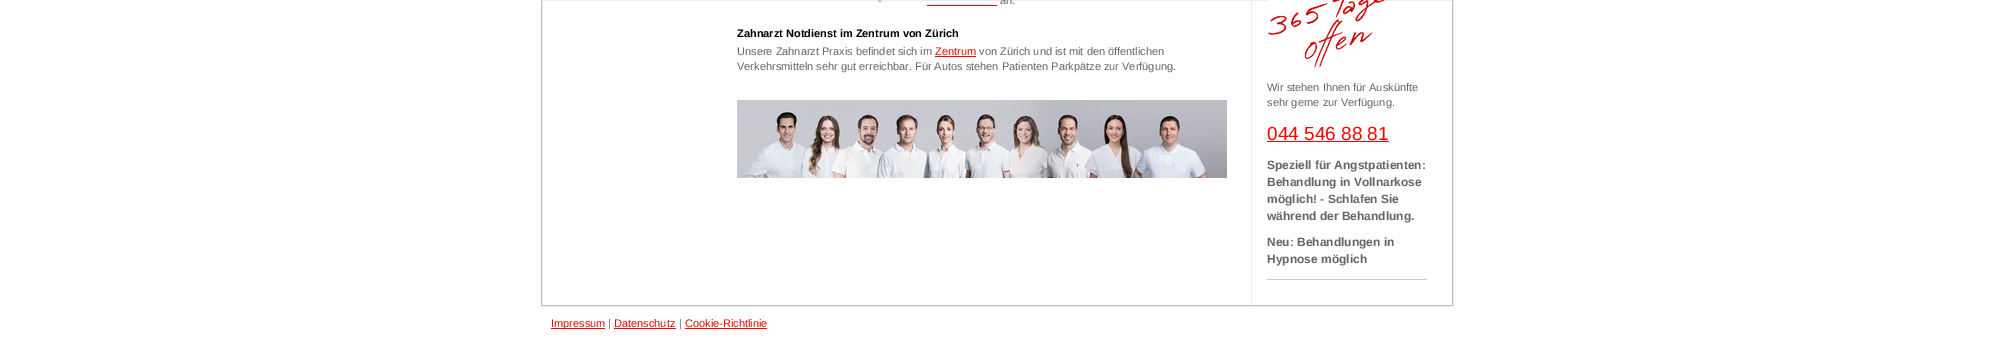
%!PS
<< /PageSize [1992 356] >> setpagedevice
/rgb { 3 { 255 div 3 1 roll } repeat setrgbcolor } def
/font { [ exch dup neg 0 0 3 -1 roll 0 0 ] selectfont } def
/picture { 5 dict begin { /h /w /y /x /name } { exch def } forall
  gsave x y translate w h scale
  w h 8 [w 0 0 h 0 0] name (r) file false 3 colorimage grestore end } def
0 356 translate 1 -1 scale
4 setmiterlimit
255 255 255 rgb
0 0 1992 356 rectfill
190 190 190 rgb
541.5 -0.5 911 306 rectstroke
239 7 0 rgb
927 5 70 1 rectfill
935 56 41 1 rectfill
(img/1.rgb) 737 100 490 78 picture
236 236 236 rgb
1251 0 1 305 rectfill
(img/2.rgb) 1268 0 117 68 picture
[
  [1267 141 122 1 239 7 0]
  [1267 279 160 1 204 204 204]
  [551 328 54 1 239 7 0]
  [614 328 62 1 239 7 0]
  [685 328 82 1 239 7 0]
] { aload pop rgb rectfill } forall
/LiberationSans-Regular 11 font
102 102 102 rgb
878 4 moveto (-) show
1000 4 moveto (an.) show
/LiberationSans-Bold 11 font
0 0 0 rgb
737 37 moveto (Zahnarzt Notdienst im Zentrum von Zürich) show
/LiberationSans-Regular 11 font
102 102 102 rgb
737 55 moveto (Unsere Zahnarzt Praxis befindet sich im) show
239 7 0 rgb
935 55 moveto (Zentrum) show
102 102 102 rgb
[
  [(von Zürich und ist mit den öffentlichen) 979 55]
  [(Verkehrsmitteln sehr gut erreichbar. Für Autos stehen Patienten Parkpätze zur Verfügung.) 737 70]
  [(Wir stehen Ihnen für Auskünfte) 1267 91]
  [(sehr gerne zur Verfügung.) 1267 106]
] { aload pop moveto show } forall
/LiberationSans-Regular 19 font
239 7 0 rgb
1267 140 moveto (044 546 88 81) show
/LiberationSans-Bold 12 font
102 102 102 rgb
[
  [(Speziell für Angstpatienten:) 1267 169]
  [(Behandlung in Vollnarkose) 1267 186]
  [(möglich! - Schlafen Sie) 1267 203]
  [(während der Behandlung.) 1267 220]
  [(Neu: Behandlungen in) 1267 246]
  [(Hypnose möglich) 1267 263]
] { aload pop moveto show } forall
/LiberationSans-Regular 11 font
239 7 0 rgb
551 327 moveto (Impressum) show
102 102 102 rgb
608 327 moveto (|) show
239 7 0 rgb
614 327 moveto (Datenschutz) show
102 102 102 rgb
679 327 moveto (|) show
239 7 0 rgb
685 327 moveto (Cookie-Richtlinie) show
showpage
